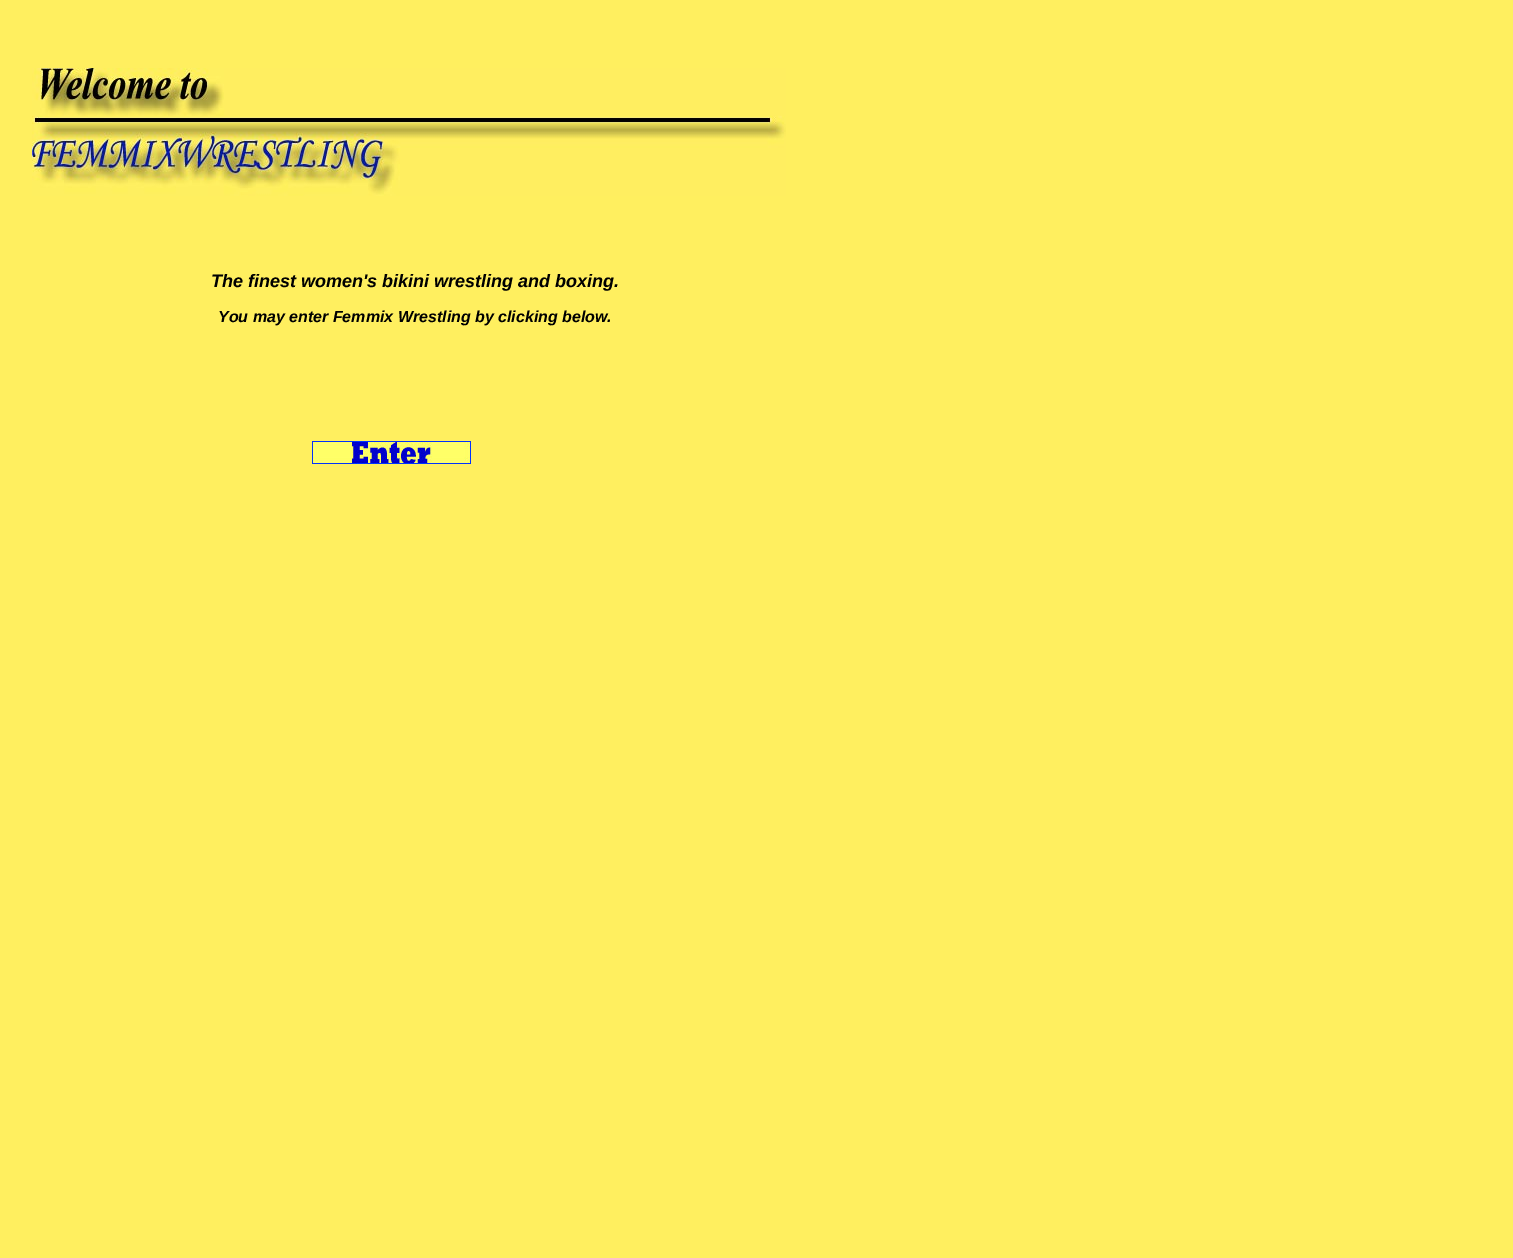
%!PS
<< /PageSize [1513 1258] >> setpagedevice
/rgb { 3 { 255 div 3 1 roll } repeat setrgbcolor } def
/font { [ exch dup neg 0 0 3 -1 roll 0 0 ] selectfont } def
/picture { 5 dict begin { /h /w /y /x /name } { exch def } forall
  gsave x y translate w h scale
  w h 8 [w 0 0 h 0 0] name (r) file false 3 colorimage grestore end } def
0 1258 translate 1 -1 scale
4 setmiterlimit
255 239 95 rgb
0 0 1513 1258 rectfill
(img/1.rgb) 32 68 754 128 picture
(img/2.rgb) 312 441 159 23 picture
/LiberationSans-BoldItalic 18 font
0 0 0 rgb
211 287 moveto (The finest women's bikini wrestling and boxing.) show
/LiberationSans-BoldItalic 16 font
218 322 moveto (You may enter Femmix Wrestling by clicking below.) show
showpage
